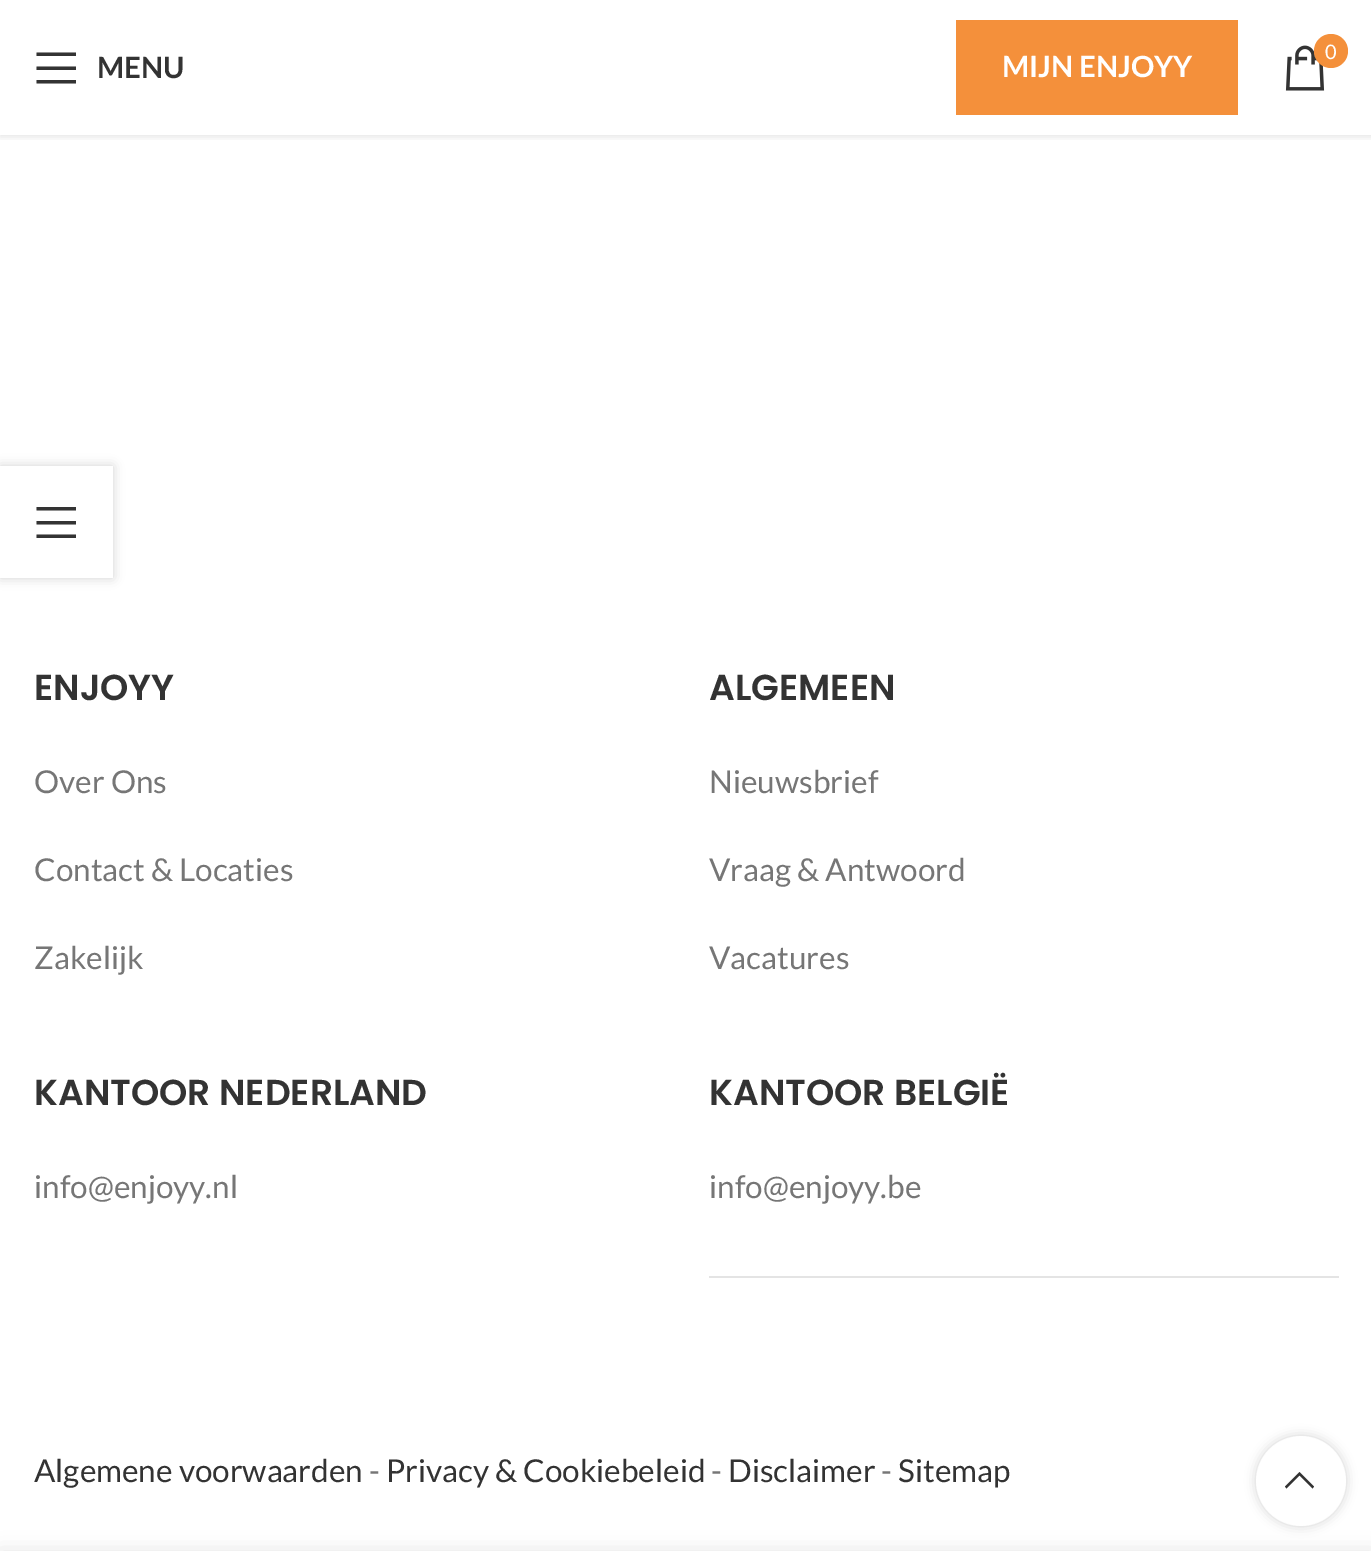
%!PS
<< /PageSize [1371 1551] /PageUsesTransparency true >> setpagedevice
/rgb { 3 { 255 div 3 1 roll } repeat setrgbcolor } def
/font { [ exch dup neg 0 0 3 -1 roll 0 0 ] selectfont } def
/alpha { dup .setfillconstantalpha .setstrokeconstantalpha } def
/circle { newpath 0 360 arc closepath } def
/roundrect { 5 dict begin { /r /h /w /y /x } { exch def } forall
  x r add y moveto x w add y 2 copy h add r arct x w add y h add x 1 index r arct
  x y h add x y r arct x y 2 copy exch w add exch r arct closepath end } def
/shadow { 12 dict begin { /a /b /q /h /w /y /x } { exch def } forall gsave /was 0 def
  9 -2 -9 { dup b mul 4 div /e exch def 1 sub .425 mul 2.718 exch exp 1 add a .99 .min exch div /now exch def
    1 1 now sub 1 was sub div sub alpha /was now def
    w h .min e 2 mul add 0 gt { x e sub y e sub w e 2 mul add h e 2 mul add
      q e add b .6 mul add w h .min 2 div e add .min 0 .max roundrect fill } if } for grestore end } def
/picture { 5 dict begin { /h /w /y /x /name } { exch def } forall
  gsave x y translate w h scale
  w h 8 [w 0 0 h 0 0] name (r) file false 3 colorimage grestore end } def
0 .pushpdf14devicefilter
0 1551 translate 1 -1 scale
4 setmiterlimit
255 255 255 rgb
0 0 1371 1551 rectfill
gsave
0 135 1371 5 rectclip
0 0 0 rgb
0 2 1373 135 0 3.5 0.1 shadow
grestore
51 51 51 rgb
36.5 56 moveto 76 56 lineto 76 52.5 lineto 36.5 52.5 lineto closepath 36.5 70 moveto 76 70 lineto 76 66.5 lineto 36.5 66.5 lineto closepath 36.5 83.5 moveto 76 83.5 lineto 76 80 lineto 36.5 80 lineto closepath fill
(img/1.rgb) 1285 45 40 46 picture
244 144 59 rgb
1331 51 17 circle fill
956 20 282 95 rectfill
gsave
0 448 moveto 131 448 lineto 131 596 lineto 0 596 lineto closepath 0 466 moveto 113 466 lineto 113 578 lineto 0 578 lineto closepath eoclip newpath
0 0 0 rgb
0 466 113 112 0 5.5 0.17 shadow
grestore
0.9 alpha
255 255 255 rgb
112 466 1 112 rectfill
1 alpha
51 51 51 rgb
36.5 510.5 moveto 76 510.5 lineto 76 507 lineto 36.5 507 lineto closepath 36.5 524.5 moveto 76 524.5 lineto 76 521 lineto 36.5 521 lineto closepath 36.5 538 moveto 76 538 lineto 76 534.5 lineto 36.5 534.5 lineto closepath fill
gsave
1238 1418 moveto 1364 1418 lineto 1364 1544 lineto 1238 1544 lineto closepath 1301 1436 moveto 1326 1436 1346 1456 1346 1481 curveto 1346 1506 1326 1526 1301 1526 curveto 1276 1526 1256 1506 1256 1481 curveto 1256 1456 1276 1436 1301 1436 curveto closepath eoclip newpath
0 0 0 rgb
1256 1436 90 90 45 5.5 0.17 shadow
grestore
0.9 alpha
255 255 255 rgb
1301 1481 45 circle fill
1 alpha
51 51 51 rgb
1312.5 1488.5 moveto 1314 1486.5 lineto 1299.5 1472 lineto 1285 1486.5 lineto 1286.5 1488.5 lineto 1299.5 1475.5 lineto closepath fill
0 0 0 rgb
0 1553 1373 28 0 10 0.14 shadow
228 228 228 rgb
709 1276 630 2 rectfill
/Lato-Bold 29.25 font
51 51 51 rgb
97 78 moveto (MENU) show
/Lato-Regular 20 font
255 255 255 rgb
1325 59 moveto (0) show
/Lato-Bold 29.25 font
1002 77 moveto (MIJN ENJOYY) show
/Poppins-SemiBold 36 font
51 51 51 rgb
34 700 moveto (ENJOYY) show
/Lato-Regular 31.5 font
118 118 118 rgb
[
  [(Over Ons) 34 793]
  [(Contact & Locaties) 34 881]
  [(Zakelijk) 34 969]
] { aload pop moveto show } forall
/Poppins-SemiBold 36 font
51 51 51 rgb
709 700 moveto (ALGEMEEN) show
/Lato-Regular 31.5 font
118 118 118 rgb
[
  [(Nieuwsbrief) 709 793]
  [(Vraag & Antwoord) 709 881]
  [(Vacatures) 709 969]
] { aload pop moveto show } forall
/Poppins-SemiBold 36 font
51 51 51 rgb
34 1105 moveto (KANTOOR NEDERLAND) show
/Lato-Regular 31.5 font
118 118 118 rgb
34 1198 moveto (info@enjoyy.nl) show
/Poppins-SemiBold 36 font
51 51 51 rgb
709 1105 moveto (KANTOOR BELGIË) show
/Lato-Regular 31.5 font
118 118 118 rgb
709 1198 moveto (info@enjoyy.be) show
51 51 51 rgb
34 1482 moveto (Algemene voorwaarden) show
118 118 118 rgb
369 1482 moveto (-) show
51 51 51 rgb
386 1482 moveto (Privacy & Cookiebeleid) show
118 118 118 rgb
711 1482 moveto (-) show
51 51 51 rgb
728 1482 moveto (Disclaimer) show
118 118 118 rgb
881 1482 moveto (-) show
51 51 51 rgb
898 1482 moveto (Sitemap) show
.poppdf14devicefilter showpage
